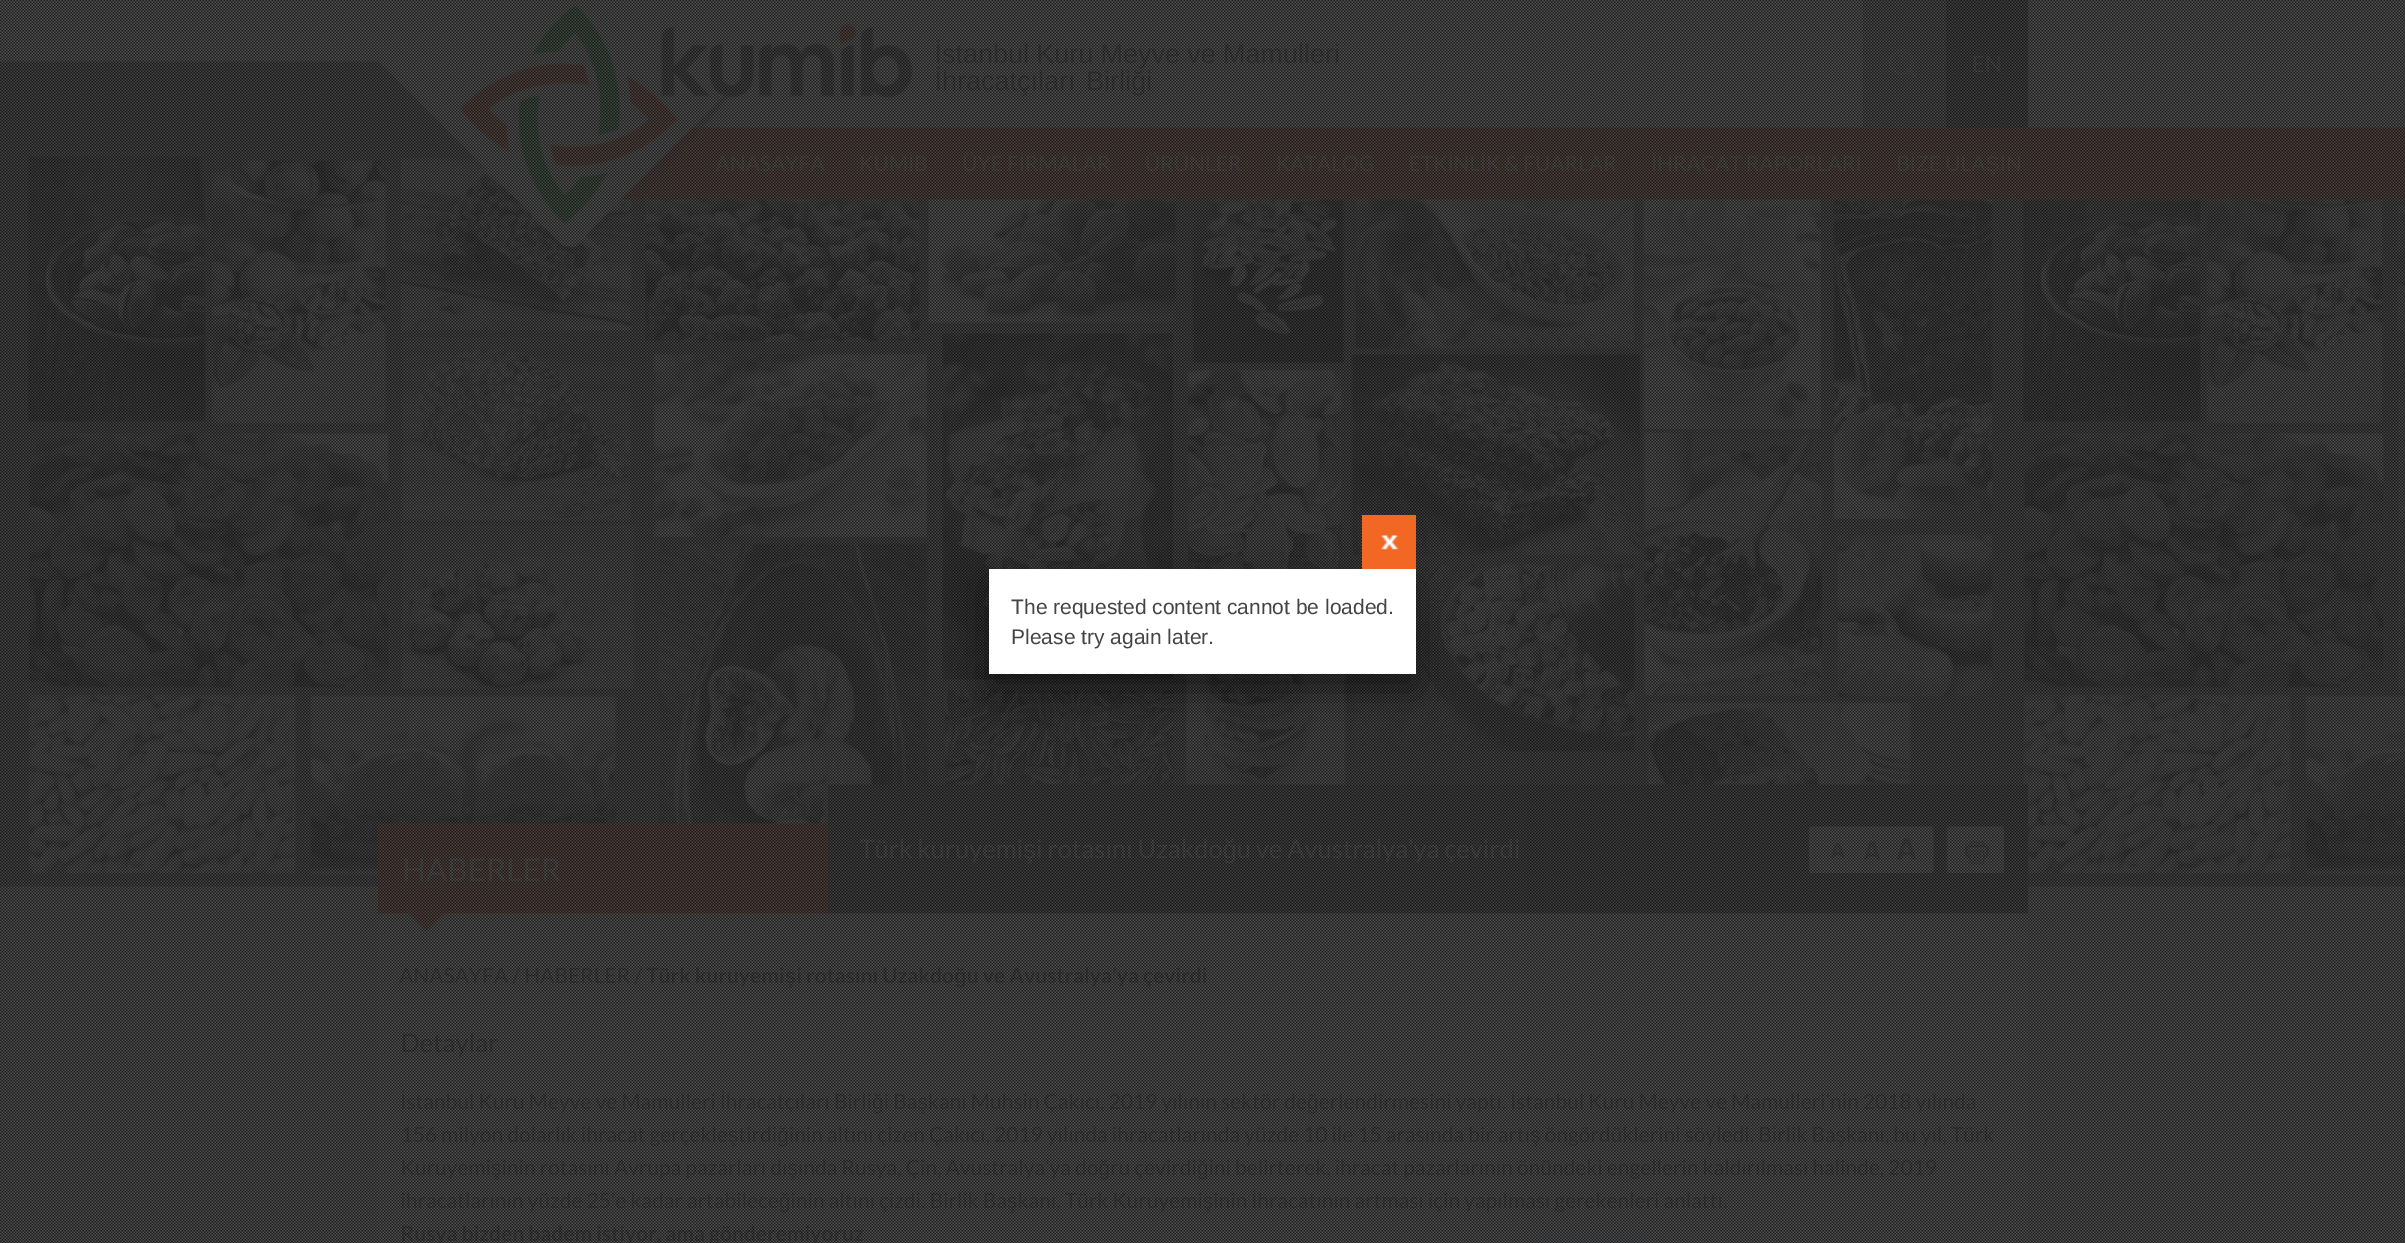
%!PS
<< /PageSize [2405 1243] /PageUsesTransparency true >> setpagedevice
/rgb { 3 { 255 div 3 1 roll } repeat setrgbcolor } def
/font { [ exch dup neg 0 0 3 -1 roll 0 0 ] selectfont } def
/alpha { dup .setfillconstantalpha .setstrokeconstantalpha } def
/roundrect { 5 dict begin { /r /h /w /y /x } { exch def } forall
  x r add y moveto x w add y 2 copy h add r arct x w add y h add x 1 index r arct
  x y h add x y r arct x y 2 copy exch w add exch r arct closepath end } def
/shadow { 12 dict begin { /a /b /q /h /w /y /x } { exch def } forall gsave /was 0 def
  9 -2 -9 { dup b mul 4 div /e exch def 1 sub .425 mul 2.718 exch exp 1 add a .99 .min exch div /now exch def
    1 1 now sub 1 was sub div sub alpha /was now def
    w h .min e 2 mul add 0 gt { x e sub y e sub w e 2 mul add h e 2 mul add
      q e add b .6 mul add w h .min 2 div e add .min 0 .max roundrect fill } if } for grestore end } def
/picture { 5 dict begin { /h /w /y /x /name } { exch def } forall
  gsave x y translate w h scale
  w h 8 [w 0 0 h 0 0] name (r) file false 3 colorimage grestore end } def
0 .pushpdf14devicefilter
0 1243 translate 1 -1 scale
4 setmiterlimit
255 255 255 rgb
0 0 2405 1243 rectfill
(img/3.rgb) 0 61 2405 826 picture
(img/1.rgb) 0 0 2405 248 picture
(img/2.rgb) 1888 49 29 29 picture
(img/4.rgb) 378 784 1650 459 picture
(img/5.rgb) 1809 826 195 47 picture
(img/6.rgb) 0 0 2405 1243 picture
0 0 0 rgb
989 584 427 105 0 19 0.5 shadow
255 255 255 rgb
989 569 427 105 rectfill
242 103 36 rgb
1362 515 54 54 rectfill
(img/7.rgb) 1381 535 18 15 picture
/LiberationSans-Regular 21 font
68 68 68 rgb
1011 614 moveto (The requested content cannot be loaded.) show
1011 644 moveto (Please try again later.) show
.poppdf14devicefilter showpage
